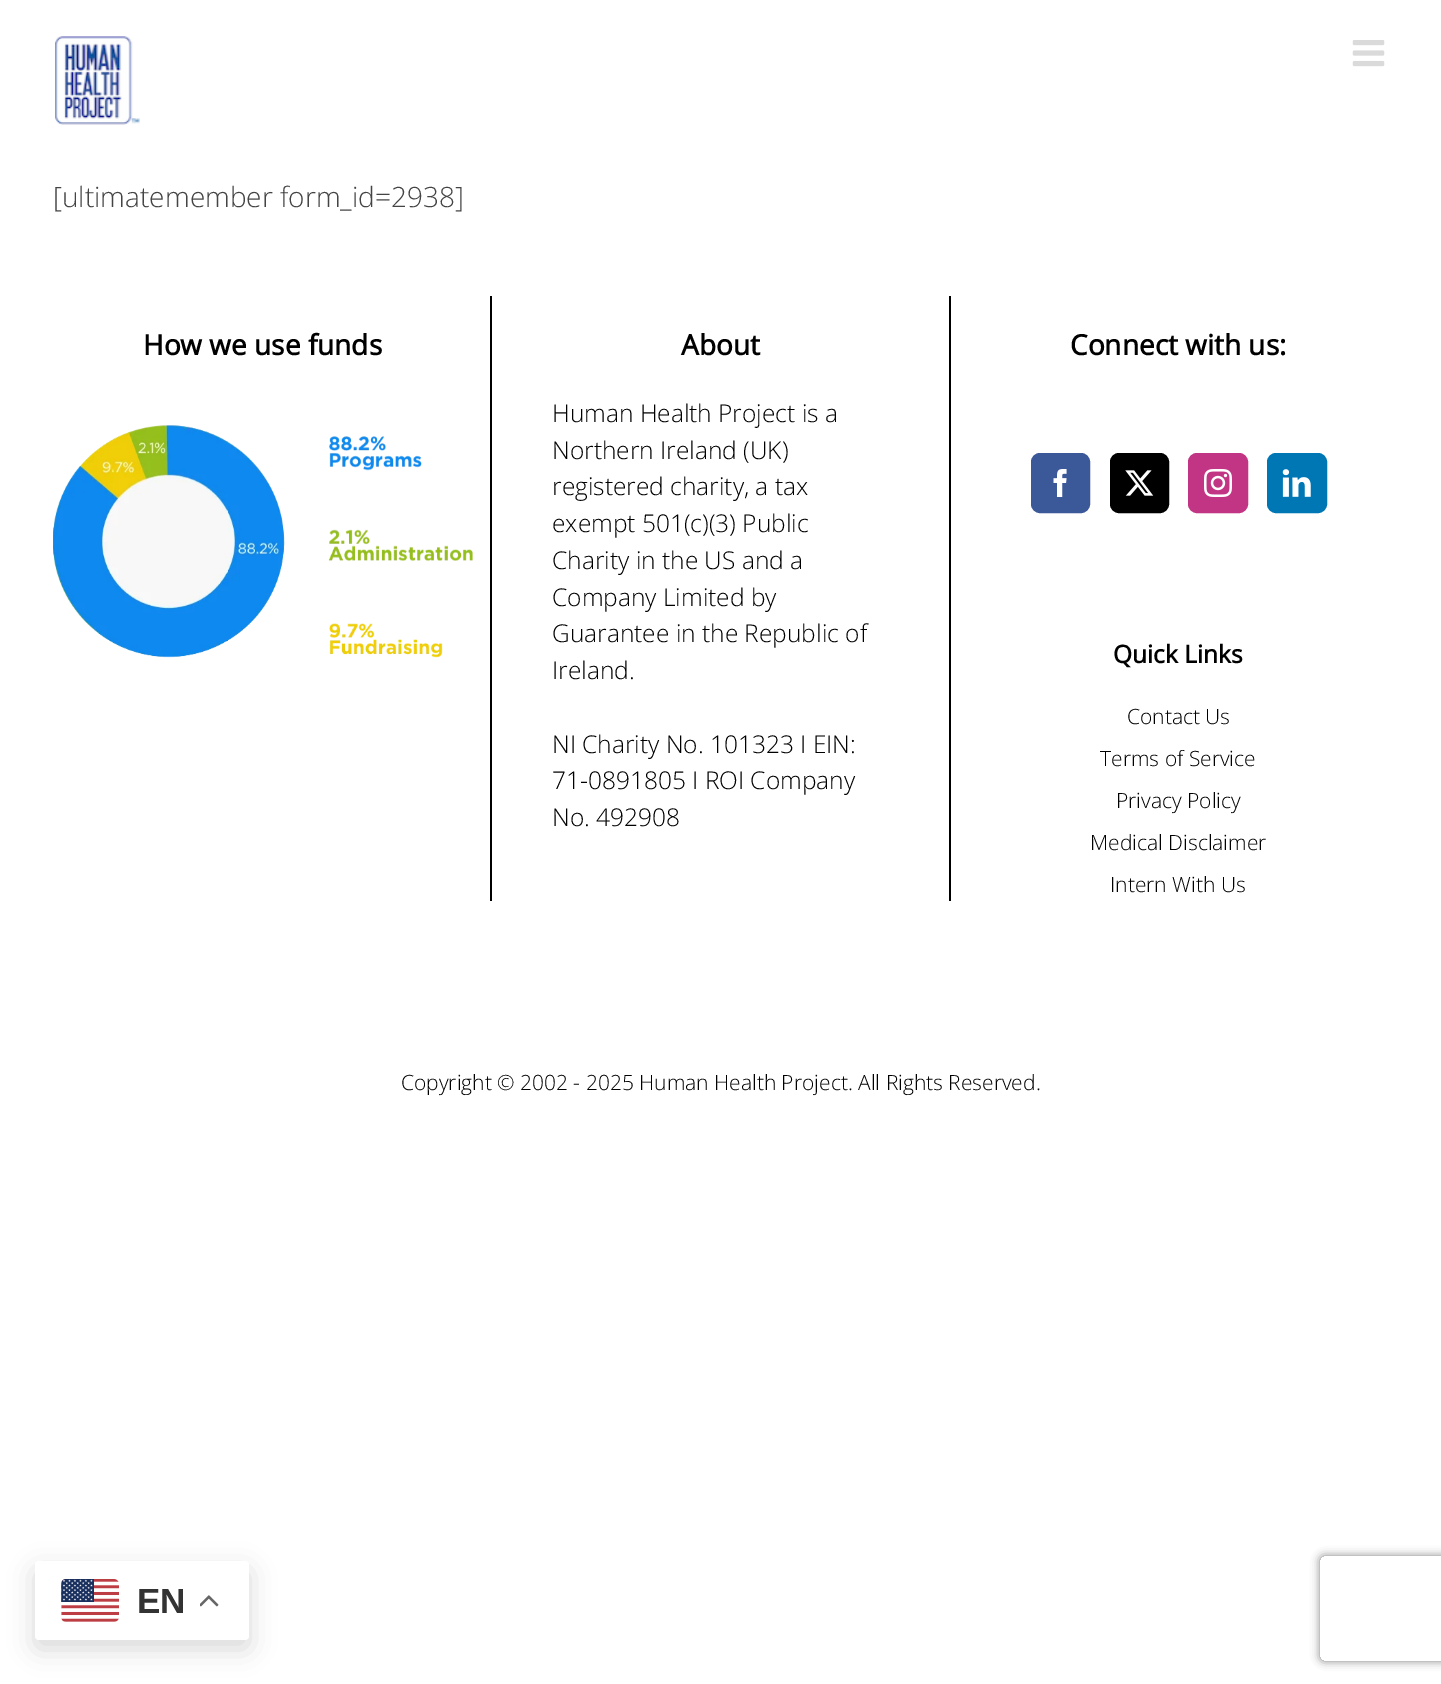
%!PS
<< /PageSize [1441 1684] /PageUsesTransparency true >> setpagedevice
/rgb { 3 { 255 div 3 1 roll } repeat setrgbcolor } def
/font { [ exch dup neg 0 0 3 -1 roll 0 0 ] selectfont } def
/alpha { dup .setfillconstantalpha .setstrokeconstantalpha } def
/roundrect { 5 dict begin { /r /h /w /y /x } { exch def } forall
  x r add y moveto x w add y 2 copy h add r arct x w add y h add x 1 index r arct
  x y h add x y r arct x y 2 copy exch w add exch r arct closepath end } def
/shadow { 12 dict begin { /a /b /q /h /w /y /x } { exch def } forall gsave /was 0 def
  9 -2 -9 { dup b mul 4 div /e exch def 1 sub .425 mul 2.718 exch exp 1 add a .99 .min exch div /now exch def
    1 1 now sub 1 was sub div sub alpha /was now def
    w h .min e 2 mul add 0 gt { x e sub y e sub w e 2 mul add h e 2 mul add
      q e add b .6 mul add w h .min 2 div e add .min 0 .max roundrect fill } if } for grestore end } def
/picture { 5 dict begin { /h /w /y /x /name } { exch def } forall
  gsave x y translate w h scale
  w h 8 [w 0 0 h 0 0] name (r) file false 3 colorimage grestore end } def
0 .pushpdf14devicefilter
0 1684 translate 1 -1 scale
4 setmiterlimit
255 255 255 rgb
0 0 1441 1684 rectfill
(img/1.rgb) 55 36 85 89 picture
(img/2.rgb) 1352 40 33 27 picture
0 0 0 rgb
490 296 2 605 rectfill
(img/3.rgb) 53 425 420 233 picture
949 296 2 605 rectfill
59 89 152 rgb
1032 454 57 58 8 roundrect gsave fill grestore
2 setlinewidth
stroke
(img/4.rgb) 1053 469 14 28 picture
0 0 0 rgb
1111 454 57 58 8 roundrect gsave fill grestore
stroke
(img/5.rgb) 1125 470 29 26 picture
193 53 132 rgb
1189 454 58 58 8 roundrect gsave fill grestore
stroke
(img/6.rgb) 1204 469 28 28 picture
0 119 181 rgb
1268 454 58 58 8 roundrect gsave fill grestore
stroke
(img/7.rgb) 1282 469 29 28 picture
0 0 0 rgb
35 1570 214 79 4 13 0.15 shadow
255 255 255 rgb
35 1561 214 79 4 roundrect fill
(img/8.rgb) 61 1579 58 43 picture
(img/9.rgb) 200 1595 19 12 picture
gsave
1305 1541 moveto 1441 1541 lineto 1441 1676 lineto 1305 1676 lineto closepath 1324 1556 moveto 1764 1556 lineto 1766 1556 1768 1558 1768 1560 curveto 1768 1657 lineto 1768 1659 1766 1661 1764 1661 curveto 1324 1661 lineto 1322 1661 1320 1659 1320 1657 curveto 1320 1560 lineto 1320 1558 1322 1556 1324 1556 curveto closepath eoclip newpath
128 128 128 rgb
1320 1556 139 105 4 4.5 1 shadow
grestore
/OpenSans-Light 28 font
68 68 68 rgb
53 207 moveto ([ultimatemember form_id=2938]) show
/OpenSans-Bold 28 font
0 0 0 rgb
143 355 moveto (How we use funds) show
681 355 moveto (About) show
/OpenSans-Light 24.5 font
[
  [(Human Health Project is a) 552 422]
  [(Northern Ireland \(UK\)) 552 459]
  [(registered charity, a tax) 552 495]
  [(exempt 501\(c\)\(3\) Public) 552 532]
  [(Charity in the US and a) 552 569]
  [(Company Limited by) 552 606]
  [(Guarantee in the Republic of) 552 642]
  [(Ireland.) 552 679]
  [(NI Charity No. 101323 I EIN:) 552 753]
  [(71-0891805 I ROI Company) 552 789]
  [(No. 492908) 552 826]
] { aload pop moveto show } forall
/OpenSans-Bold 28 font
1070 355 moveto (Connect with us:) show
/OpenSans-Bold 24.5 font
1113 663 moveto (Quick Links) show
/OpenSans-Light 21 font
[
  [(Contact Us) 1127 724]
  [(Terms of Service) 1100 766]
  [(Privacy Policy) 1116 808]
  [(Medical Disclaimer) 1090 850]
  [(Intern With Us) 1110 892]
  [(Copyright © 2002 - 2025 Human Health Project. All Rights Reserved.) 401 1090]
] { aload pop moveto show } forall
/LiberationSans-Bold 35 font
51 51 51 rgb
137 1613 moveto (EN) show
.poppdf14devicefilter showpage
